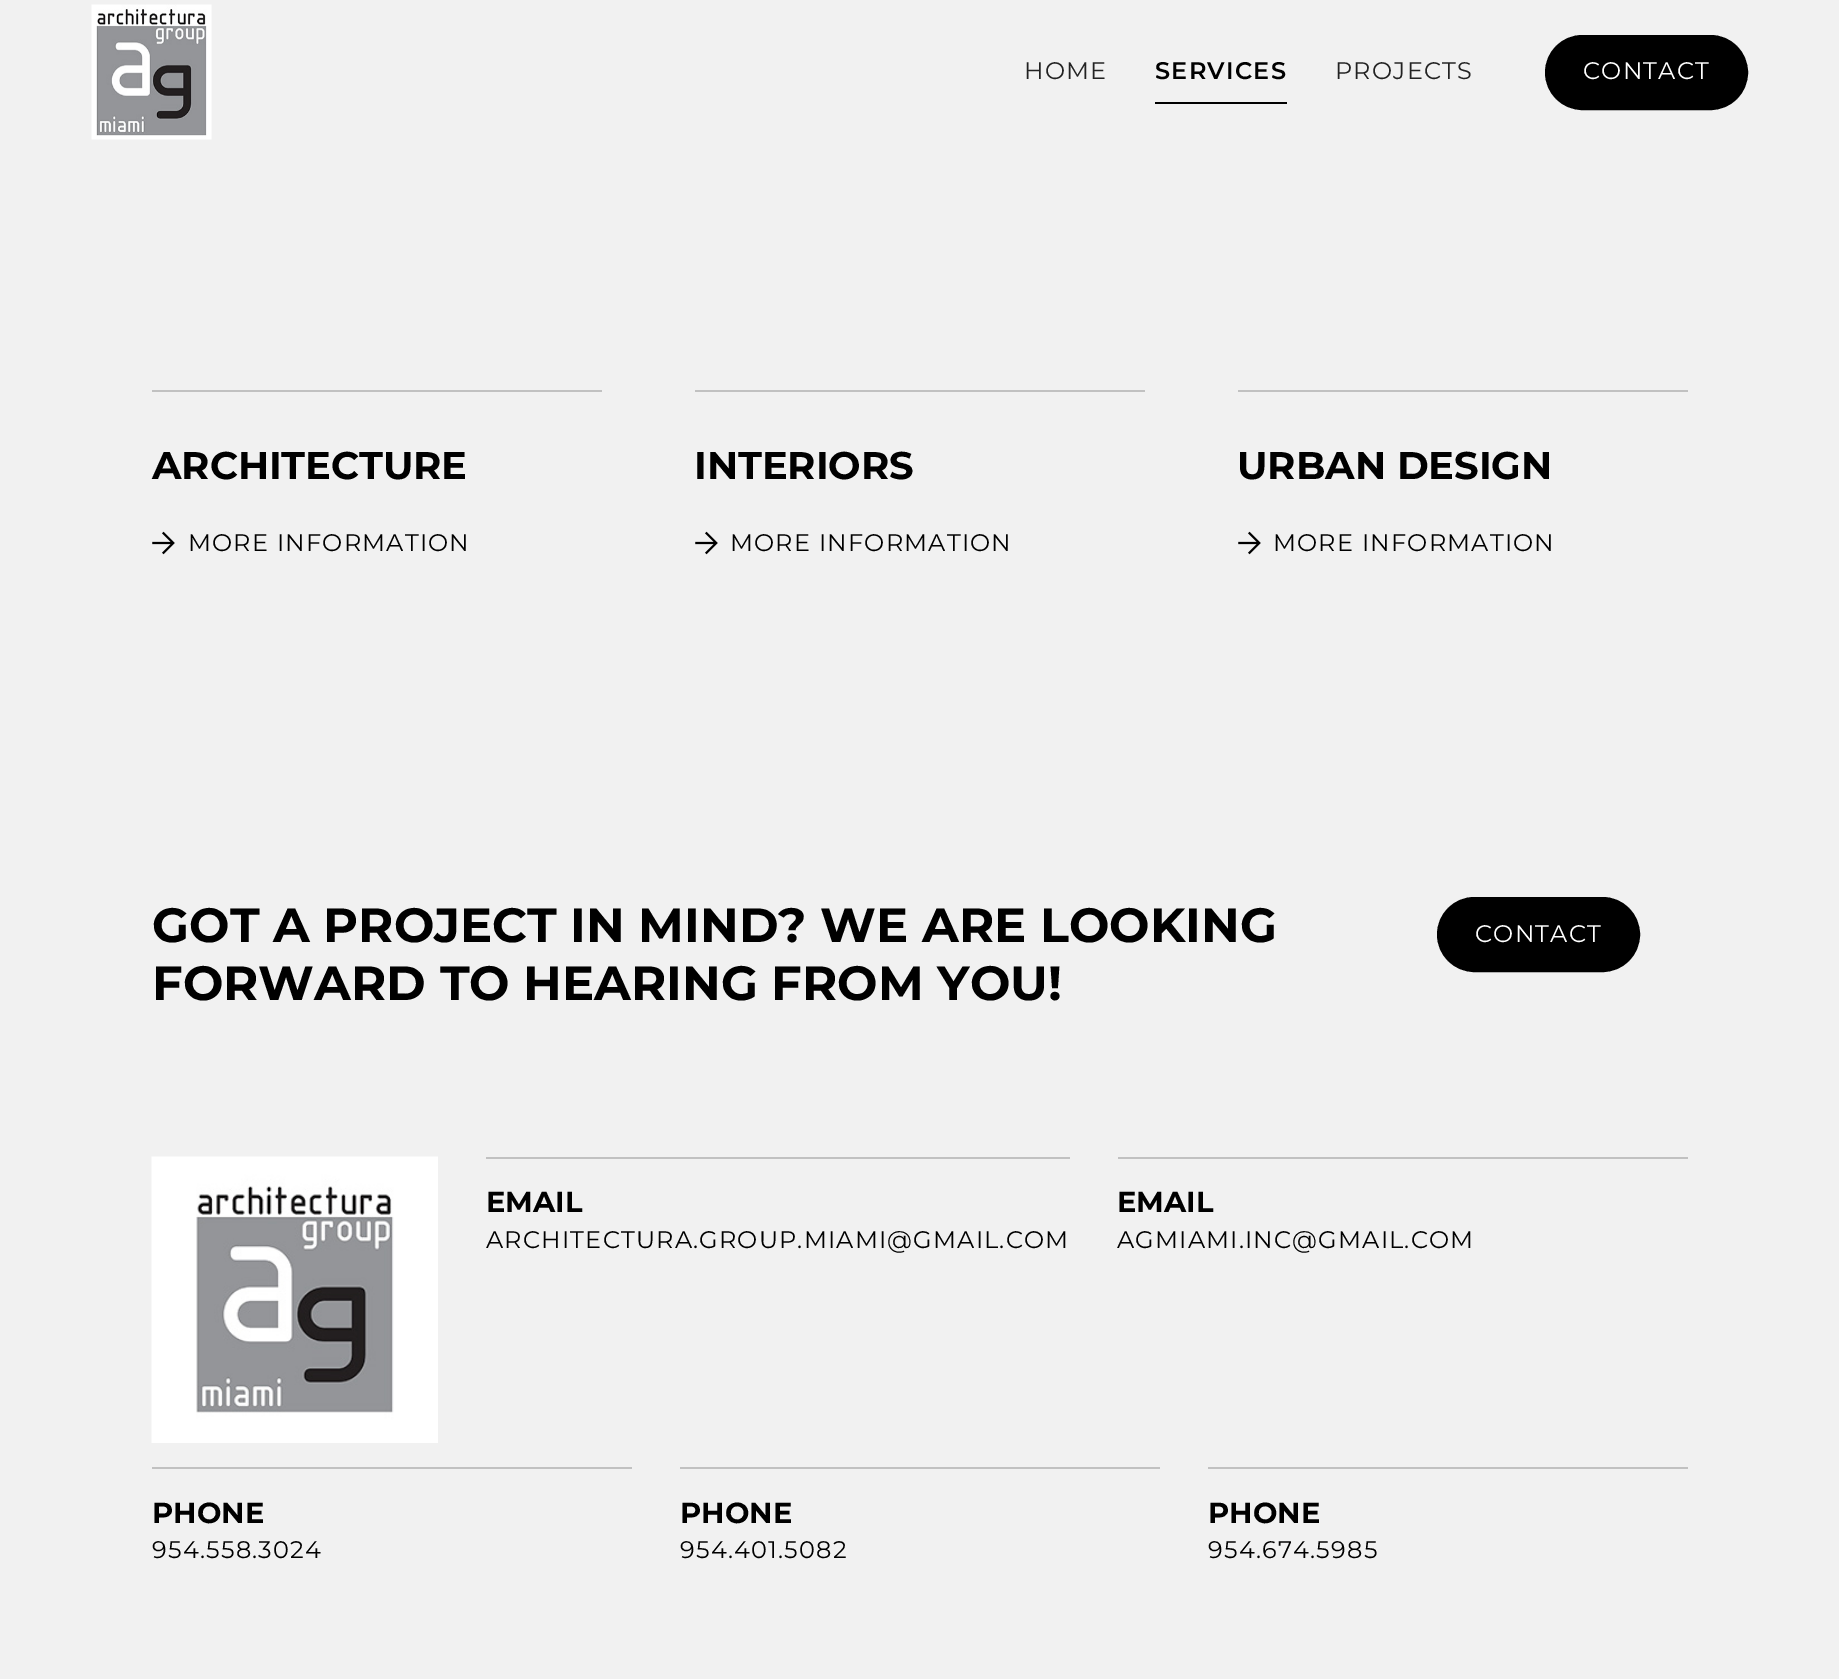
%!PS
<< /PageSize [1839 1679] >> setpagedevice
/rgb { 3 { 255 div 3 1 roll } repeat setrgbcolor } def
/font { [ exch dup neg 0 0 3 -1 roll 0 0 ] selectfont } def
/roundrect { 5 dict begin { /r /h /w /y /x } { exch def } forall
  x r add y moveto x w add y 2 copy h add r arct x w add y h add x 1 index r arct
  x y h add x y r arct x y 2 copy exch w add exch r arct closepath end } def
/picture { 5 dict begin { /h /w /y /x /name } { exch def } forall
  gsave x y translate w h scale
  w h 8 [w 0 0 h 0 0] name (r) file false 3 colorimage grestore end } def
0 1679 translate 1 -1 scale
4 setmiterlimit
241 241 241 rgb
0 0 1839 1679 rectfill
(img/1.rgb) 91 4 121 136 picture
0 0 0 rgb
1155 102 132 2 rectfill
1546 36 201 73 36.5 roundrect gsave fill grestore
2 setlinewidth
stroke
193 193 193 rgb
152 390 450 2 rectfill
(img/2.rgb) 152 531 23 24 picture
695 390 450 2 rectfill
(img/2.rgb) 695 531 23 24 picture
1238 390 450 2 rectfill
(img/2.rgb) 1238 531 23 24 picture
0 0 0 rgb
1438 898 201 73 36.5 roundrect gsave fill grestore
stroke
(img/3.rgb) 151 1156 287 287 picture
[
  [486 1157 584 2 193 193 193]
  [1118 1157 570 2 193 193 193]
  [152 1467 480 2 193 193 193]
  [680 1467 480 2 193 193 193]
  [1208 1467 480 2 193 193 193]
] { aload pop rgb rectfill } forall
/Montserrat-Regular 24 font
34 34 34 rgb
1024 79 moveto 1.2 0 (HOME) ashow
/Montserrat-SemiBold 24 font
0 0 0 rgb
1155 79 moveto 1.2 0 (SERVICES) ashow
/Montserrat-Regular 24 font
34 34 34 rgb
1335 79 moveto 1.2 0 (PROJECTS) ashow
255 255 255 rgb
1583 79 moveto 1.2 0 (CONTACT) ashow
/Montserrat-Bold 38.5 font
0 0 0 rgb
152 479 moveto (ARCHITECTURE) show
/Montserrat-Regular 24 font
188 551 moveto 1.2 0 (MORE INFORMATION) ashow
/Montserrat-Bold 38.5 font
694 479 moveto (INTERIORS) show
/Montserrat-Regular 24 font
730 551 moveto 1.2 0 (MORE INFORMATION) ashow
/Montserrat-Bold 38.5 font
1237 479 moveto (URBAN DESIGN) show
/Montserrat-Regular 24 font
1273 551 moveto 1.2 0 (MORE INFORMATION) ashow
/Montserrat-Bold 48 font
152 942 moveto (GOT A PROJECT IN MIND? WE ARE LOOKING) show
152 1000 moveto (FORWARD TO HEARING FROM YOU!) show
/Montserrat-Regular 24 font
255 255 255 rgb
1475 942 moveto 1.2 0 (CONTACT) ashow
/Montserrat-Bold 29 font
0 0 0 rgb
486 1212 moveto (EMAIL) show
/Montserrat-Regular 24 font
486 1248 moveto 1.2 0 (ARCHITECTURA.GROUP.MIAMI@GMAIL.COM) ashow
/Montserrat-Bold 29 font
1117 1212 moveto (EMAIL) show
/Montserrat-Regular 24 font
1117 1248 moveto 1.2 0 (AGMIAMI.INC@GMAIL.COM) ashow
/Montserrat-Bold 29 font
152 1523 moveto (PHONE) show
/Montserrat-Regular 24 font
152 1558 moveto 1.2 0 (954.558.3024) ashow
/Montserrat-Bold 29 font
680 1523 moveto (PHONE) show
/Montserrat-Regular 24 font
680 1558 moveto 1.2 0 (954.401.5082) ashow
/Montserrat-Bold 29 font
1208 1523 moveto (PHONE) show
/Montserrat-Regular 24 font
1208 1558 moveto 1.2 0 (954.674.5985) ashow
showpage
